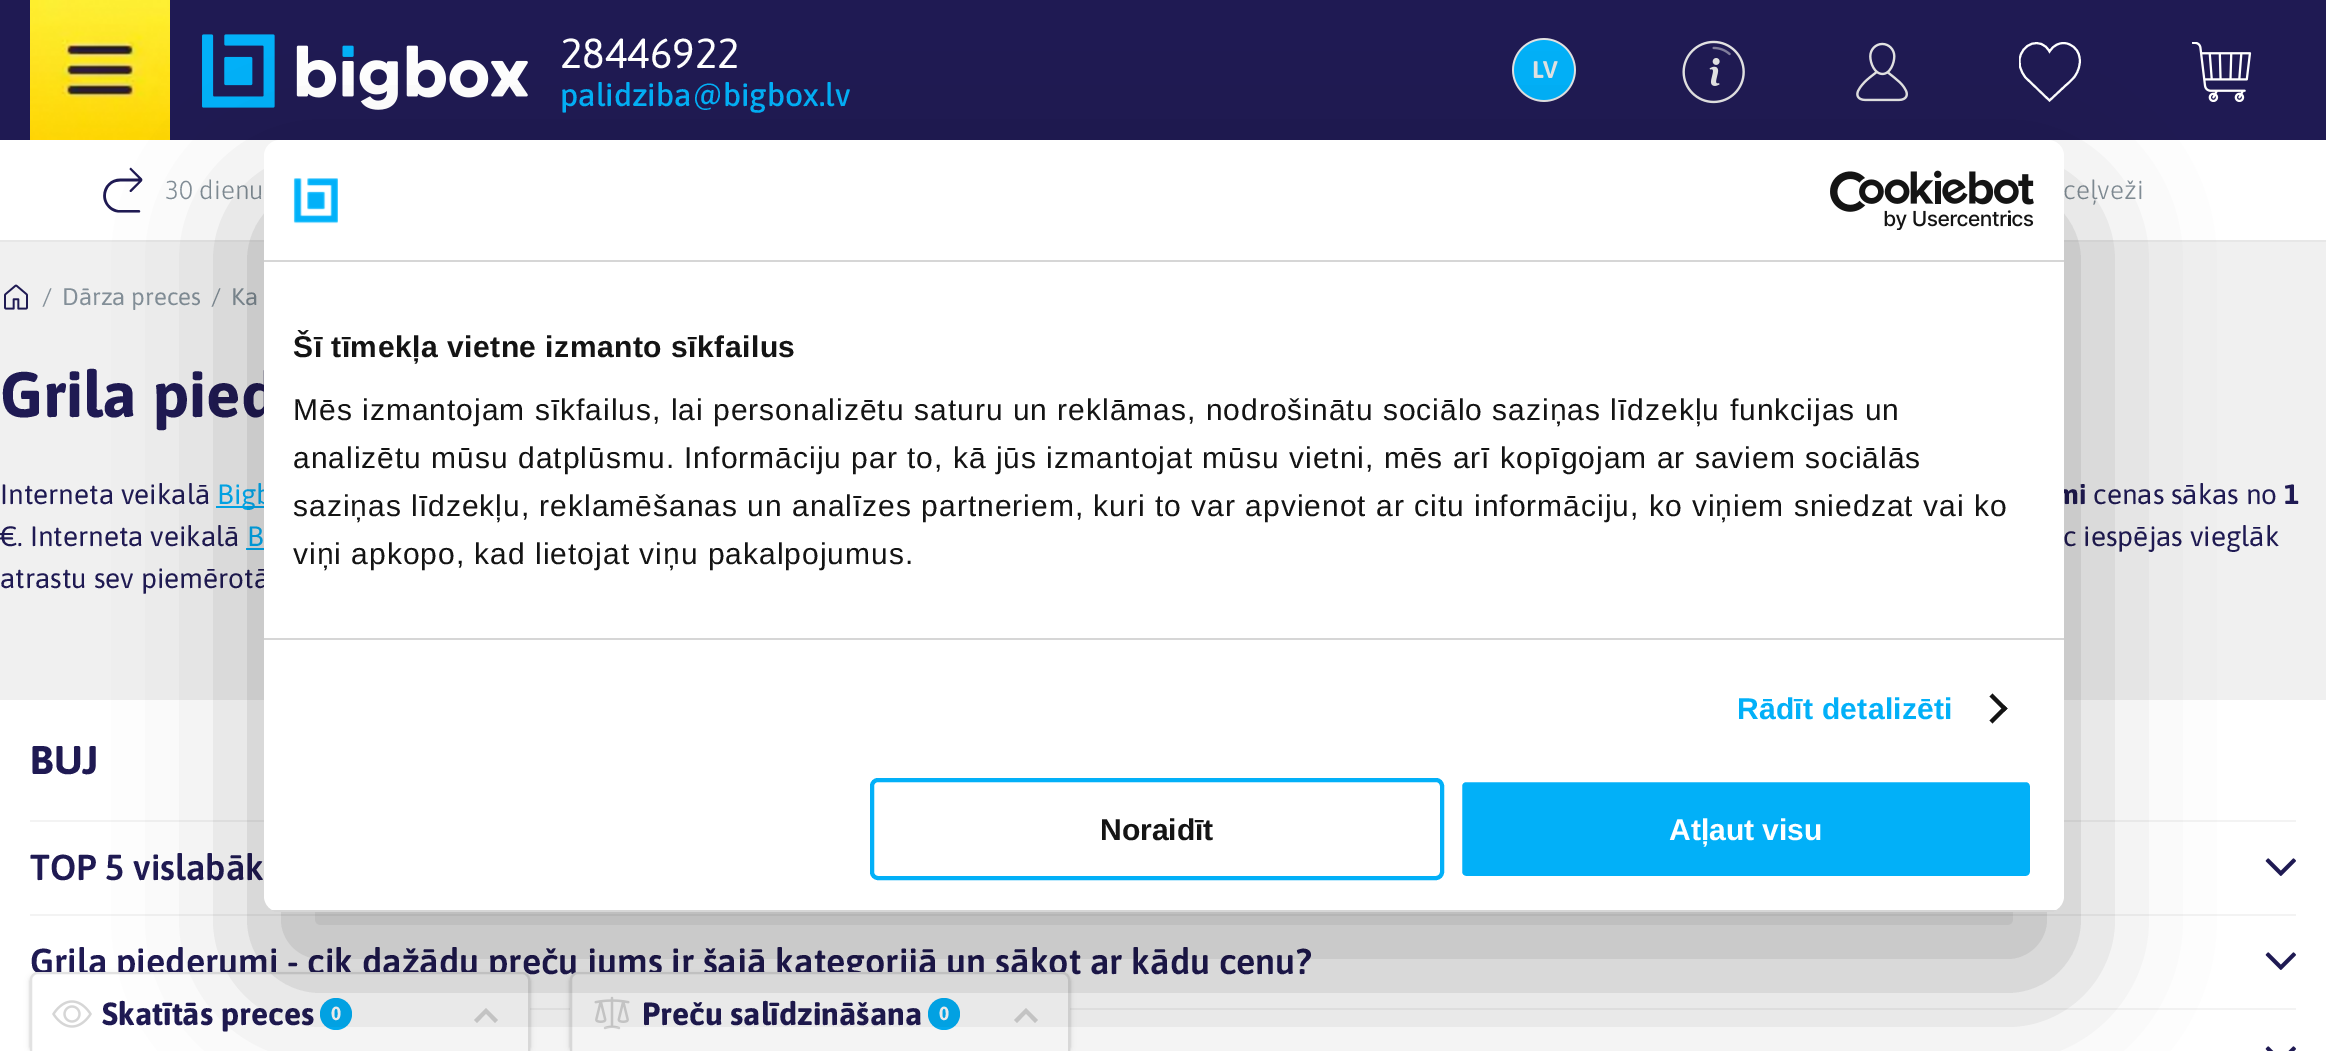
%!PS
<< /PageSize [2326 1051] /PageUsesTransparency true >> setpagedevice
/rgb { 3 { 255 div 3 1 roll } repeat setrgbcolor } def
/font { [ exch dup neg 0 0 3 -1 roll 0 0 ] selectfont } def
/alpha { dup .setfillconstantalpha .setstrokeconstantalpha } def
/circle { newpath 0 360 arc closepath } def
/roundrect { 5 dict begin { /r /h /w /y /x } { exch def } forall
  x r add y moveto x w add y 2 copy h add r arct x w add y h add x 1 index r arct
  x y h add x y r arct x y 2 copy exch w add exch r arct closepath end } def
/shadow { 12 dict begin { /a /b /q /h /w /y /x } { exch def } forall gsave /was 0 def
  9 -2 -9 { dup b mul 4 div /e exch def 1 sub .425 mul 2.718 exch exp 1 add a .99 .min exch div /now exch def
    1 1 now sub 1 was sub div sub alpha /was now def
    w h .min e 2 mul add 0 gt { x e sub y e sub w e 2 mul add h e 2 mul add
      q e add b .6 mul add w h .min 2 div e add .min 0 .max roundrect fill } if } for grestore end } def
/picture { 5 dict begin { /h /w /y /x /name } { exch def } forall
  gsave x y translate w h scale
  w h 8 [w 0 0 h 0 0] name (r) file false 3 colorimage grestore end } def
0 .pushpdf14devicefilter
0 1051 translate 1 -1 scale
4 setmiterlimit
240 240 240 rgb
0 0 2326 1051 rectfill
31 26 83 rgb
0 0 2326 140 rectfill
(img/1.rgb) 30 0 140 140 picture
(img/2.rgb) 202 34 326 76 picture
(img/3.rgb) 1512 38 64 64 picture
(img/4.rgb) 1682 40 63 64 picture
(img/5.rgb) 1856 42 52 60 picture
gsave
2019 42 64 60 rectclip
255 255 255 rgb
2 setlinewidth
2049.5 51.5 moveto 2051.5 48.5 2054 45.5 2057.5 44.5 curveto 2061 42.5 2066 42.5 2069.5 44.5 curveto 2082.5 50 2082 66 2075 76 curveto 2072 80.5 2067.5 83.5 2064 87 curveto 2049.5 100.5 lineto 2025.5 77.5 lineto 2023 74.5 2021 70.5 2020 66.5 curveto 2019.5 60 lineto 2021 43.5 2041 36 2049.5 51.5 curveto closepath stroke
grestore
(img/6.rgb) 2192 42 60 60 picture
255 255 255 rgb
0 140 2326 100 rectfill
231 231 231 rgb
0 240 2326 2 rectfill
(img/7.rgb) 103 167 40 46 picture
(img/8.rgb) 4 284 24 26 picture
[
  [216 506 48 2 2 176 248]
  [246 548 18 2 2 176 248]
  [0 700 2326 351 255 255 255]
  [30 820 2266 2 243 243 243]
] { aload pop rgb rectfill } forall
(img/9.rgb) 2265 858 31 18 picture
30 914 2266 2 rectfill
(img/9.rgb) 2265 952 31 18 picture
530 1008 1766 2 rectfill
(img/10.rgb) 2265 1046 31 5 picture
0 0 0 rgb
30 974 500 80 8 3 0.12 shadow
30 974 500 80 8 1 0.14 shadow
570 974 500 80 8 3 0.12 shadow
570 974 500 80 8 1 0.14 shadow
/Asap-Regular 42 font
255 255 255 rgb
560 68 moveto (28446922) show
/Asap-Medium 32 font
2 176 248 rgb
560 106 moveto (palidziba@bigbox.lv) show
/Asap-Light 26 font
131 143 152 rgb
165 199 moveto (30 dienu) show
2063 199 moveto (ceļveži) show
/Asap-Regular 24 font
[
  [(/) 42 305]
  [(Dārza preces) 62 305]
  [(/) 211 305]
  [(Ka) 231 305]
] { aload pop moveto show } forall
/Asap-Bold 64 font
31 26 83 rgb
0 417 moveto (Grila pied) show
/Asap-Regular 28 font
0 504 moveto (Interneta veikalā) show
2 176 248 rgb
217 504 moveto (Bigb) show
/Asap-Bold 28 font
31 26 83 rgb
2055 504 moveto (mi) show
/Asap-Regular 28 font
2093 504 moveto (cenas sākas no) show
/Asap-Bold 28 font
2284 504 moveto (1) show
/Asap-Regular 28 font
0 546 moveto (€. Interneta veikalā) show
2 176 248 rgb
247 546 moveto (B) show
31 26 83 rgb
2063 546 moveto (c iespējas vieglāk) show
0 588 moveto (atrastu sev piemērotā) show
/Asap-Bold 40 font
30 774 moveto (BUJ) show
/Asap-SemiBold 36 font
30 880 moveto (TOP 5 vislabāk) show
30 974 moveto (Grila piederumi - cik dažādu preču jums ir šajā kategorijā un sākot ar kādu cenu?) show
255 255 255 rgb
38 973 moveto 522 973 lineto 526 973 529 976 529 980 curveto 529 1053 lineto 31 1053 lineto 31 980 lineto 31 976 34 973 38 973 curveto closepath gsave fill grestore
226 226 226 rgb
2 setlinewidth
stroke
(img/11.rgb) 52 1000 40 28 picture
/Asap-Bold 32 font
31 26 83 rgb
102 1025 moveto (Skatītās preces) show
2 176 248 rgb
336 1014 16 circle fill
/Asap-Bold 19 font
255 255 255 rgb
331 1020 moveto (0) show
214 214 214 rgb
477 1023 moveto 486 1013.5 lineto 495 1023 lineto 498 1020 lineto 486 1008 lineto 474 1020 lineto closepath fill
255 255 255 rgb
578 973 moveto 1062 973 lineto 1066 973 1069 976 1069 980 curveto 1069 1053 lineto 571 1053 lineto 571 980 lineto 571 976 574 973 578 973 curveto closepath gsave fill grestore
226 226 226 rgb
stroke
(img/12.rgb) 594 996 36 34 picture
/Asap-Bold 32 font
31 26 83 rgb
642 1025 moveto (Preču salīdzināšana) show
2 176 248 rgb
944 1014 16 circle fill
/Asap-Bold 19 font
255 255 255 rgb
939 1020 moveto (0) show
214 214 214 rgb
1017 1023 moveto 1026 1013.5 lineto 1035 1023 lineto 1038 1020 lineto 1026 1008 lineto 1014 1020 lineto closepath fill
0 0 0 rgb
264 204 1800 772 16 68 0.3 shadow
255 255 255 rgb
264 140 1800 772 16 roundrect fill
214 214 214 rgb
264 260 1800 2 rectfill
(img/13.rgb) 293 178 45 46 picture
(img/14.rgb) 1830 170 204 60 picture
264 638 1800 2 rectfill
/LiberationSans-Bold 30 font
20 20 20 rgb
293 357 moveto 0.5 0 (Šī tīmekļa vietne izmanto sīkfailus) ashow
/LiberationSans-Regular 30 font
293 420 moveto 1 0 (Mēs izmantojam sīkfailus, lai personalizētu saturu un reklāmas, nodrošinātu sociālo saziņas līdzekļu funkcijas un) ashow
293 468 moveto 1 0 (analizētu mūsu datplūsmu. Informāciju par to, kā jūs izmantojat mūsu vietni, mēs arī kopīgojam ar saviem sociālās) ashow
293 516 moveto 1 0 (saziņas līdzekļu, reklamēšanas un analīzes partneriem, kuri to var apvienot ar citu informāciju, ko viņiem sniedzat vai ko) ashow
293 564 moveto 1 0 (viņi apkopo, kad lietojat viņu pakalpojumus.) ashow
/LiberationSans-Bold 30 font
2 176 248 rgb
1737 719 moveto 0.25 0 (Rādīt detalizēti) ashow
20 20 20 rgb
1992.5 693.5 moveto 2007.5 708.5 lineto 2004.5 711.5 lineto 1989.5 696.5 lineto closepath fill
2004.5 705.5 moveto 2007.5 708.5 lineto 1992.5 723.5 lineto 1989.5 720.5 lineto closepath fill
gsave
264 140 1800 772 16 roundrect clip newpath
214 214 214 rgb
264 910 1800 2 rectfill
grestore
2 176 248 rgb
4 setlinewidth
872 780 570 98 6 roundrect stroke
20 20 20 rgb
1100 840 moveto (Noraidīt) show
2 176 248 rgb
1460 780 572 98 6 roundrect gsave fill grestore
255 255 255 rgb
stroke
1669 840 moveto (Atļaut visu) show
.poppdf14devicefilter showpage
